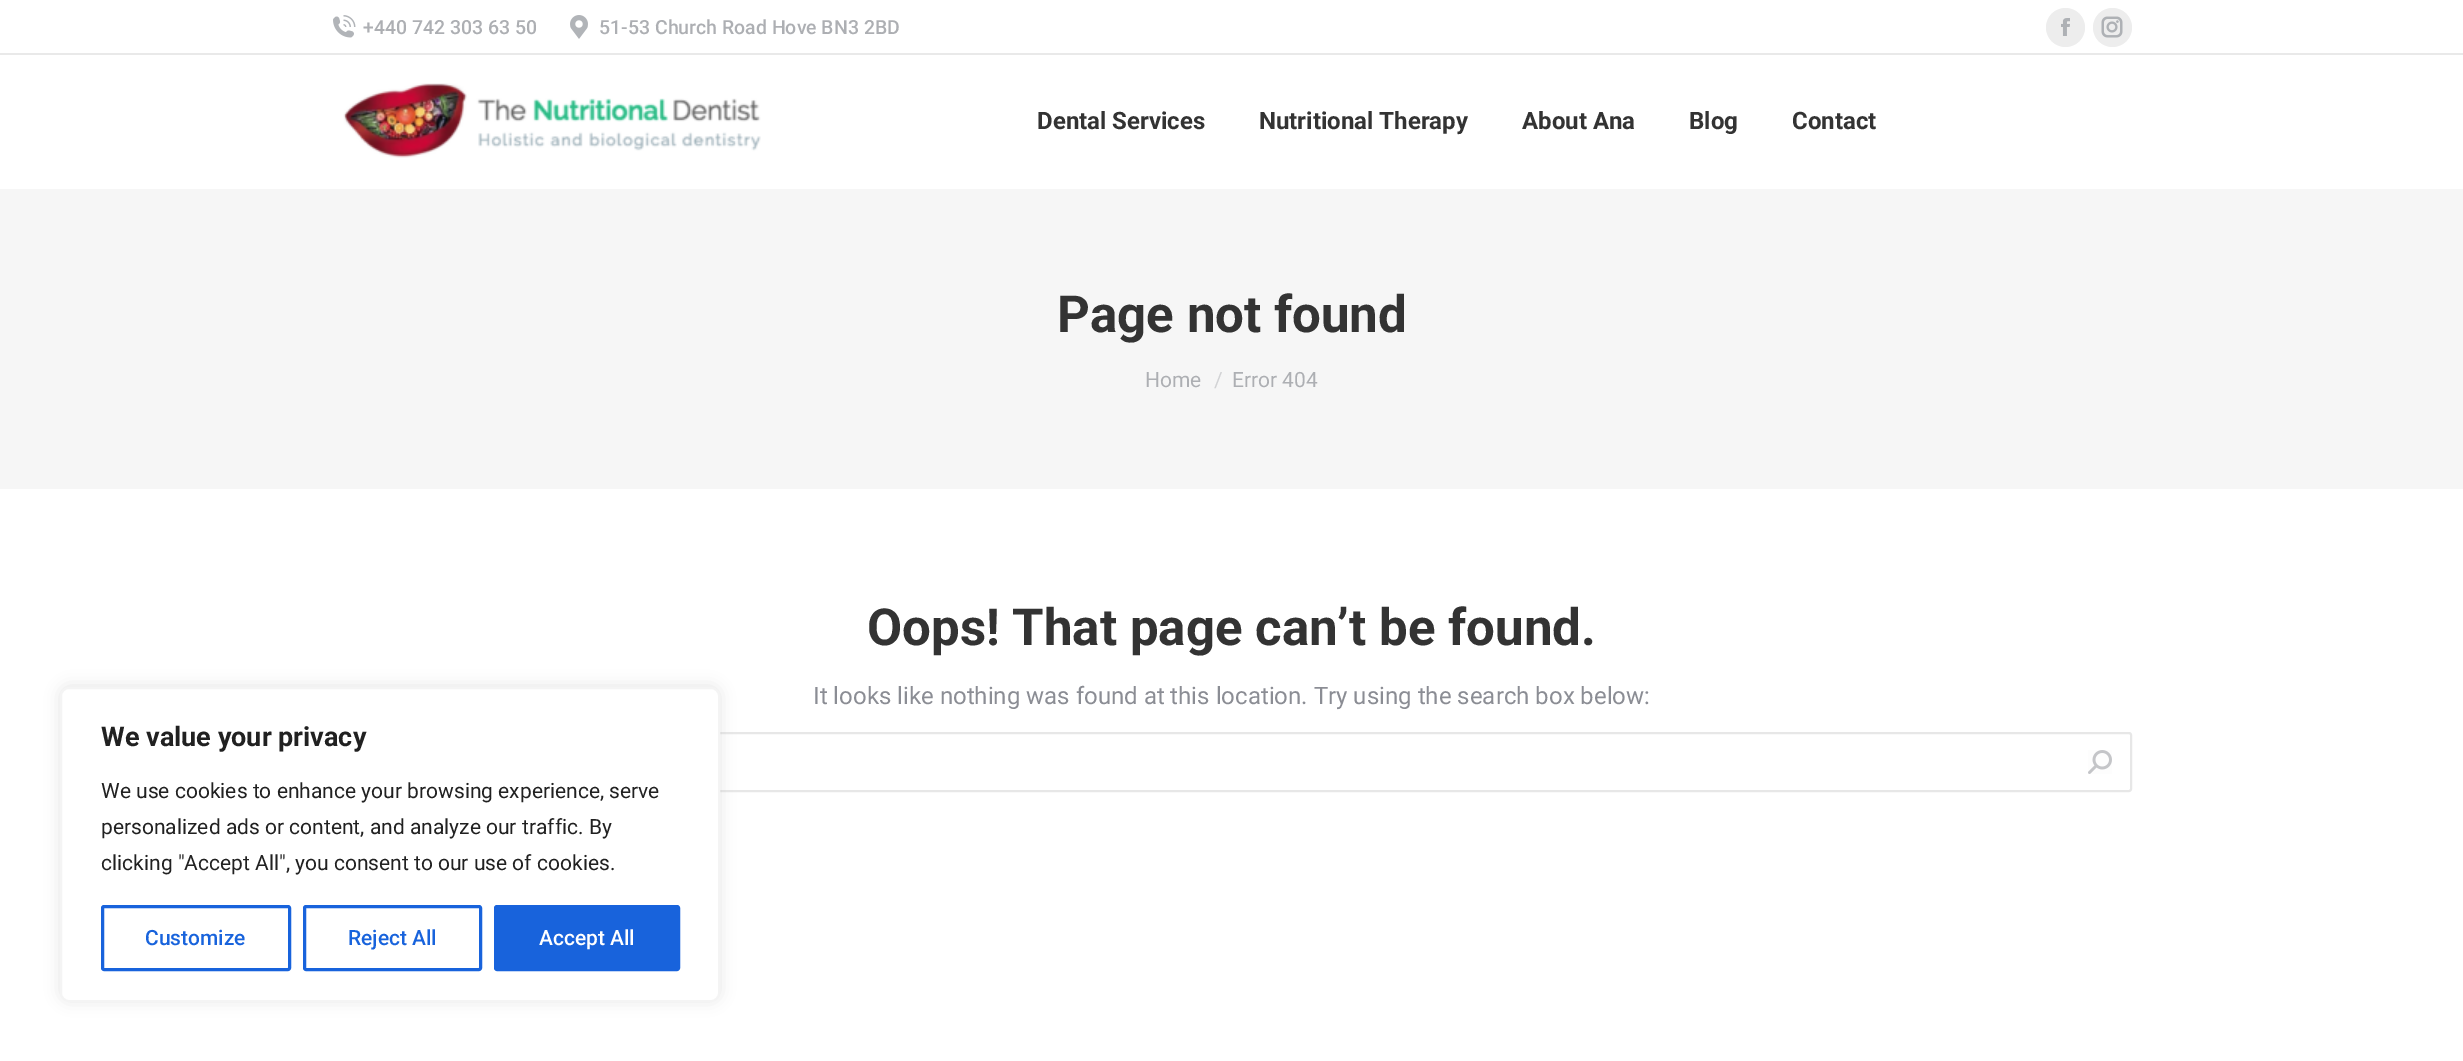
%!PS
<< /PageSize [2463 1061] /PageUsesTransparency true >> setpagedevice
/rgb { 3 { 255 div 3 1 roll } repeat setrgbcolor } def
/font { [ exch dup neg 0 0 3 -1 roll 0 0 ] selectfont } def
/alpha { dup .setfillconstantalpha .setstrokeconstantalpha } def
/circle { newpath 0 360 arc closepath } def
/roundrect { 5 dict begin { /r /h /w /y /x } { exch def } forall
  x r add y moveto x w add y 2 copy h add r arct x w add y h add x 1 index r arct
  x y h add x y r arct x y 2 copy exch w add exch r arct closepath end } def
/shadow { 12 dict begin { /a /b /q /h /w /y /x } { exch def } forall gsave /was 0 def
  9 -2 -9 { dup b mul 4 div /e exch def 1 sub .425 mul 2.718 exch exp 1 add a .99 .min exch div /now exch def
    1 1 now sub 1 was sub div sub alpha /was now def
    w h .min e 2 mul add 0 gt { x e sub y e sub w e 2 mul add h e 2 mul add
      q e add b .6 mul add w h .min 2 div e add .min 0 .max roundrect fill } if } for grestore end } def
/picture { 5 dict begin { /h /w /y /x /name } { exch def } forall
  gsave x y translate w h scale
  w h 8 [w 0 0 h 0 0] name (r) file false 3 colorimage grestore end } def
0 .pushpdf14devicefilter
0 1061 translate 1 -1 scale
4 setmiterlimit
255 255 255 rgb
0 0 2463 1061 rectfill
(img/1.rgb) 333 15 23 23 picture
(img/2.rgb) 570 15 18 24 picture
237 237 237 rgb
2065.5 27.5 19.5 circle fill
(img/3.rgb) 2061 18 9 18 picture
2112.5 27.5 19.5 circle fill
(img/4.rgb) 2101 16 22 22 picture
233 233 233 rgb
0 53 2463 2 rectfill
(img/5.rgb) 343 83 418 75 picture
246 246 246 rgb
0 189 2463 300 rectfill
231 231 231 rgb
2 setlinewidth
333 733 1798 58 2 roundrect stroke
(img/6.rgb) 2088 750 24 24 picture
172 171 171 rgb
60 686 660 315 9 7.5 0.3 shadow
255 255 255 rgb
61 688 658 313 8 roundrect gsave fill grestore
244 244 244 rgb
stroke
24 99 220 rgb
3 setlinewidth
102.5 906.5 187 63 1.5 roundrect stroke
304.5 906.5 176 63 1.5 roundrect stroke
495.5 906.5 183 63 1.5 roundrect gsave fill grestore
stroke
/Roboto-Medium 19.5 font
173 175 179 rgb
363 34 moveto (+440 742 303 63 50) show
599 34 moveto (51-53 Church Road Hove BN3 2BD) show
/Roboto-Bold 24 font
51 51 51 rgb
[
  [(Dental Services) 1037 129]
  [(Nutritional Therapy) 1259 129]
  [(About Ana) 1522 129]
  [(Blog) 1689 129]
  [(Contact) 1792 129]
] { aload pop moveto show } forall
/Roboto-Bold 51 font
1057 332 moveto (Page not found) show
/Roboto-Regular 21 font
173 175 179 rgb
1145 387 moveto (Home) show
210 211 213 rgb
1214 387 moveto (/) show
173 175 179 rgb
1232 387 moveto (Error 404) show
/Roboto-Bold 51 font
51 51 51 rgb
867 645 moveto (Oops! That page can’t be found.) show
/Roboto-Regular 24 font
139 141 148 rgb
813 704 moveto (It looks like nothing was found at this location. Try using the search box below:) show
/Roboto-Bold 27 font
33 33 33 rgb
101 746 moveto (We value your privacy) show
/Roboto-Regular 21 font
[
  [(We use cookies to enhance your browsing experience, serve) 101 798]
  [(personalized ads or content, and analyze our traffic. By) 101 834]
  [(clicking "Accept All", you consent to our use of cookies.) 101 870]
] { aload pop moveto show } forall
/Roboto-Medium 21 font
24 99 220 rgb
145 945 moveto (Customize) show
348 945 moveto (Reject All) show
255 255 255 rgb
539 945 moveto (Accept All) show
.poppdf14devicefilter showpage
